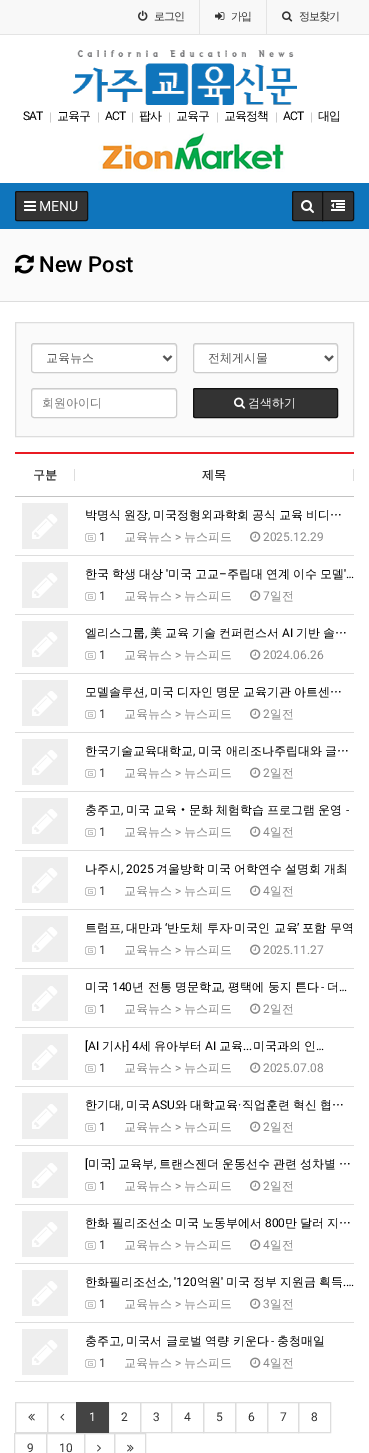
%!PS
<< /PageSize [369 1453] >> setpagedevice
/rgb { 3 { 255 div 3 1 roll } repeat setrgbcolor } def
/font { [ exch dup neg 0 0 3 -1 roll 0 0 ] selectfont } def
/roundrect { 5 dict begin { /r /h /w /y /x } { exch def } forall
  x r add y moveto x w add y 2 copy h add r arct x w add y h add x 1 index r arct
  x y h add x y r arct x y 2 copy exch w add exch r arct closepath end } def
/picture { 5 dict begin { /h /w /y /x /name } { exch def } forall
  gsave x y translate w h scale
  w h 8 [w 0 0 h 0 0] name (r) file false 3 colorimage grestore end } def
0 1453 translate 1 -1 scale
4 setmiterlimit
255 255 255 rgb
0 0 369 1453 rectfill
[
  [0 0 369 34 248 248 248]
  [0 34 369 1 228 228 228]
  [199 0 1 34 228 228 228]
] { aload pop rgb rectfill } forall
(img/1.rgb) 138 10 10 11 picture
266 0 1 34 rectfill
(img/2.rgb) 215 12 10 8 picture
(img/3.rgb) 282 11 11 11 picture
(img/4.rgb) 73 50 224 55 picture
(img/5.rgb) 98 131 187 41 picture
15 117 188 rgb
0 183 369 46 rectfill
51 51 51 rgb
15.5 191.5 72 29 1.5 roundrect gsave fill grestore
17 17 17 rgb
stroke
(img/6.rgb) 24 201 12 10 picture
51 51 51 rgb
294 191.5 moveto 322.5 191.5 lineto 322.5 220.5 lineto 294 220.5 lineto 293 220.5 292.5 220 292.5 219 curveto 292.5 193 lineto 292.5 192 293 191.5 294 191.5 curveto closepath gsave fill grestore
17 17 17 rgb
stroke
(img/7.rgb) 301 200 13 13 picture
51 51 51 rgb
322.5 191.5 moveto 352 191.5 lineto 353 191.5 353.5 192 353.5 193 curveto 353.5 219 lineto 353.5 220 353 220.5 352 220.5 curveto 322.5 220.5 lineto closepath gsave fill grestore
17 17 17 rgb
stroke
(img/8.rgb) 331 200 14 11 picture
250 250 250 rgb
0 229 369 72 rectfill
221 221 221 rgb
0 301 369 1 rectfill
(img/9.rgb) 15 254 19 20 picture
250 250 250 rgb
15.5 322.5 moveto 353.5 322.5 lineto 353.5 436.5 lineto 15.5 436.5 lineto closepath gsave fill grestore
221 221 221 rgb
stroke
255 255 255 rgb
31 343 146 30 3 roundrect fill
236 236 236 rgb
34 345 moveto 174 345 lineto 175 345 176 346 176 347 curveto 176 346 176 345 175 344 curveto 34 344 lineto 32 345 lineto 32 347 lineto 32 346 33 345 34 345 curveto closepath fill
204 204 204 rgb
31.5 343.5 145 29 2.5 roundrect stroke
85 85 85 rgb
2 setlinewidth
163.5 356 moveto 167.5 360 lineto 171.5 356 lineto stroke
255 255 255 rgb
193 343 145 30 3 roundrect fill
236 236 236 rgb
196 345 moveto 335 345 lineto 336 345 337 346 337 347 curveto 337 346 337 345 336 344 curveto 196 344 lineto 194 345 lineto 194 347 lineto 194 346 195 345 196 345 curveto closepath fill
204 204 204 rgb
1 setlinewidth
193.5 343.5 144 29 2.5 roundrect stroke
85 85 85 rgb
2 setlinewidth
325 356 moveto 329 360 lineto 333 356 lineto stroke
255 255 255 rgb
31 388 146 30 3 roundrect fill
236 236 236 rgb
34 390 moveto 174 390 lineto 175 390 176 391 176 392 curveto 176 391 176 390 175 389 curveto 34 389 lineto 32 390 lineto 32 392 lineto 32 391 33 390 34 390 curveto closepath fill
204 204 204 rgb
1 setlinewidth
31.5 388.5 145 29 2.5 roundrect stroke
51 51 51 rgb
193.5 388.5 144 29 1.5 roundrect gsave fill grestore
17 17 17 rgb
stroke
(img/10.rgb) 234 397 12 12 picture
[
  [15 452 339 2 233 27 35]
  [15 496 339 1 195 195 195]
  [74 469 1 12 221 221 221]
  [353 469 1 12 221 221 221]
  [15 555 339 1 221 221 221]
  [22 503 46 46 238 238 238]
] { aload pop rgb rectfill } forall
(img/11.rgb) 32 514 26 25 picture
(img/12.rgb) 85 533 11 9 picture
(img/13.rgb) 250 531 11 11 picture
221 221 221 rgb
15 614 339 1 rectfill
238 238 238 rgb
22 562 46 46 rectfill
(img/11.rgb) 32 573 26 25 picture
(img/12.rgb) 85 592 11 9 picture
(img/13.rgb) 250 590 11 11 picture
221 221 221 rgb
15 673 339 1 rectfill
238 238 238 rgb
22 621 46 46 rectfill
(img/11.rgb) 32 632 26 25 picture
(img/12.rgb) 85 651 11 9 picture
(img/13.rgb) 250 649 11 11 picture
221 221 221 rgb
15 732 339 1 rectfill
238 238 238 rgb
22 680 46 46 rectfill
(img/11.rgb) 32 691 26 25 picture
(img/12.rgb) 85 710 11 9 picture
(img/13.rgb) 250 708 11 11 picture
221 221 221 rgb
15 791 339 1 rectfill
238 238 238 rgb
22 739 46 46 rectfill
(img/11.rgb) 32 750 26 25 picture
(img/12.rgb) 85 769 11 9 picture
(img/13.rgb) 250 767 11 11 picture
221 221 221 rgb
15 850 339 1 rectfill
238 238 238 rgb
22 798 46 46 rectfill
(img/11.rgb) 32 809 26 25 picture
(img/12.rgb) 85 828 11 9 picture
(img/13.rgb) 250 826 11 11 picture
221 221 221 rgb
15 909 339 1 rectfill
238 238 238 rgb
22 857 46 46 rectfill
(img/11.rgb) 32 868 26 25 picture
(img/12.rgb) 85 887 11 9 picture
(img/13.rgb) 250 885 11 11 picture
221 221 221 rgb
15 968 339 1 rectfill
238 238 238 rgb
22 916 46 46 rectfill
(img/11.rgb) 32 927 26 25 picture
(img/12.rgb) 85 946 11 9 picture
(img/13.rgb) 250 944 11 11 picture
221 221 221 rgb
15 1027 339 1 rectfill
238 238 238 rgb
22 975 46 46 rectfill
(img/11.rgb) 32 986 26 25 picture
(img/12.rgb) 85 1005 11 9 picture
(img/13.rgb) 250 1003 11 11 picture
221 221 221 rgb
15 1086 339 1 rectfill
238 238 238 rgb
22 1034 46 46 rectfill
(img/11.rgb) 32 1045 26 25 picture
(img/12.rgb) 85 1064 11 9 picture
(img/13.rgb) 250 1062 11 11 picture
221 221 221 rgb
15 1145 339 1 rectfill
238 238 238 rgb
22 1093 46 46 rectfill
(img/11.rgb) 32 1104 26 25 picture
(img/12.rgb) 85 1123 11 9 picture
(img/13.rgb) 250 1121 11 11 picture
221 221 221 rgb
15 1204 339 1 rectfill
238 238 238 rgb
22 1152 46 46 rectfill
(img/11.rgb) 32 1163 26 25 picture
(img/12.rgb) 85 1182 11 9 picture
(img/13.rgb) 250 1180 11 11 picture
221 221 221 rgb
15 1263 339 1 rectfill
238 238 238 rgb
22 1211 46 46 rectfill
(img/11.rgb) 32 1222 26 25 picture
(img/12.rgb) 85 1241 11 9 picture
(img/13.rgb) 250 1239 11 11 picture
221 221 221 rgb
15 1322 339 1 rectfill
238 238 238 rgb
22 1270 46 46 rectfill
(img/11.rgb) 32 1281 26 25 picture
(img/12.rgb) 85 1300 11 9 picture
(img/13.rgb) 250 1298 11 11 picture
221 221 221 rgb
15 1381 339 1 rectfill
238 238 238 rgb
22 1329 46 46 rectfill
(img/11.rgb) 32 1340 26 25 picture
(img/12.rgb) 85 1359 11 9 picture
(img/13.rgb) 250 1357 11 11 picture
221 221 221 rgb
15.5 1402.5 32 30 rectstroke
(img/14.rgb) 28 1413 7 8 picture
47.5 1402.5 29 30 rectstroke
(img/15.rgb) 60 1413 5 8 picture
108.5 1402.5 32 30 rectstroke
68 68 68 rgb
76 1402 33 31 rectfill
221 221 221 rgb
140.5 1402.5 31 30 rectstroke
171.5 1402.5 32 30 rectstroke
203.5 1402.5 32 30 rectstroke
235.5 1402.5 32 30 rectstroke
267.5 1402.5 31 30 rectstroke
298.5 1402.5 32 30 rectstroke
14.5 1433.5 32 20 rectstroke
46.5 1433.5 38 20 rectstroke
84.5 1433.5 30 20 rectstroke
(img/16.rgb) 97 1444 4 8 picture
114.5 1433.5 31 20 rectstroke
(img/17.rgb) 127 1444 7 8 picture
/WenQuanYiZenHei-Medium 11 font
51 51 51 rgb
154 20 moveto -1 0 (로그인) ashow
231 20 moveto -1 0 (가입) ashow
299 20 moveto -1 0 (정보찾기) ashow
/Roboto-Regular 12 font
0 0 0 rgb
23 120 moveto -1 0 (SAT) ashow
204 204 204 rgb
49 121 moveto -1 0 (|) ashow
/WenQuanYiZenHei-Medium 12 font
0 0 0 rgb
57 120 moveto -1 0 (교육구) ashow
/Roboto-Regular 12 font
204 204 204 rgb
97 121 moveto -1 0 (|) ashow
0 0 0 rgb
105 120 moveto -1 0 (ACT) ashow
204 204 204 rgb
131 121 moveto -1 0 (|) ashow
/WenQuanYiZenHei-Medium 12 font
0 0 0 rgb
139 120 moveto -1 0 (팝사) ashow
/Roboto-Regular 12 font
204 204 204 rgb
168 121 moveto -1 0 (|) ashow
/WenQuanYiZenHei-Medium 12 font
0 0 0 rgb
176 120 moveto -1 0 (교육구) ashow
/Roboto-Regular 12 font
204 204 204 rgb
216 121 moveto -1 0 (|) ashow
/WenQuanYiZenHei-Medium 12 font
0 0 0 rgb
224 120 moveto -1 0 (교육정책) ashow
/Roboto-Regular 12 font
204 204 204 rgb
275 121 moveto -1 0 (|) ashow
0 0 0 rgb
283 120 moveto -1 0 (ACT) ashow
204 204 204 rgb
310 121 moveto -1 0 (|) ashow
/WenQuanYiZenHei-Medium 12 font
0 0 0 rgb
318 120 moveto -1 0 (대입) ashow
/Roboto-Regular 14 font
255 255 255 rgb
39 211 moveto (MENU) show
/Roboto-Medium 22 font
0 0 0 rgb
39 272 moveto (New Post) show
/WenQuanYiZenHei-Medium 12 font
85 85 85 rgb
46 362 moveto (교육뉴스) show
208 362 moveto (전체게시물) show
119 119 119 rgb
42 407 moveto (회원아이디) show
255 255 255 rgb
248 407 moveto (검색하기) show
/WenQuanYiZenHei-Bold 12 font
51 51 51 rgb
33 479 moveto (구분) show
202 479 moveto (제목) show
/WenQuanYiZenHei-Medium 12 font
0 0 0 rgb
85 519 moveto -0.5 0 32 (박명식 원장) widthshow
/Roboto-Regular 12 font
148 519 moveto (,) show
/WenQuanYiZenHei-Medium 12 font
153 519 moveto -0.5 0 32 (미국정형외과학회 공식 교육 비디…) widthshow
/Roboto-Regular 12 font
51 51 51 rgb
99 541 moveto (1) show
/WenQuanYiZenHei-Medium 12 font
136 136 136 rgb
124 541 moveto (교육뉴스) show
/Roboto-Regular 12 font
175 541 moveto (>) show
/WenQuanYiZenHei-Medium 12 font
184 541 moveto (뉴스피드) show
/Roboto-Regular 12 font
263 541 moveto (2025.12.29) show
/WenQuanYiZenHei-Medium 12 font
0 0 0 rgb
[
  [(한국) 85 578]
  [(학생) 112 578]
  [(대상) 139 578]
] { aload pop moveto show } forall
/Roboto-Regular 12 font
166 578 moveto (') show
/WenQuanYiZenHei-Medium 12 font
168 578 moveto (미국) show
195 578 moveto (고교) show
/Roboto-Regular 12 font
219 578 moveto (–) show
/WenQuanYiZenHei-Medium 12 font
[
  [(주립대) 227 578]
  [(연계) 266 578]
  [(이수) 293 578]
  [(모델) 320 578]
] { aload pop moveto show } forall
/Roboto-Regular 12 font
344 578 moveto ('…) show
51 51 51 rgb
99 600 moveto (1) show
/WenQuanYiZenHei-Medium 12 font
136 136 136 rgb
124 600 moveto (교육뉴스) show
/Roboto-Regular 12 font
175 600 moveto (>) show
/WenQuanYiZenHei-Medium 12 font
184 600 moveto (뉴스피드) show
/Roboto-Regular 12 font
263 600 moveto (7) show
/WenQuanYiZenHei-Medium 12 font
270 600 moveto (일전) show
0 0 0 rgb
85 637 moveto (엘리스그룹) show
/Roboto-Regular 12 font
145 637 moveto (,) show
/WenQuanYiZenHei-Medium 12 font
150 637 moveto -0.5 0 32 (美 교육 기술 컨퍼런스서) widthshow
/Roboto-Regular 12 font
282 637 moveto (AI) show
/WenQuanYiZenHei-Medium 12 font
296 637 moveto -0.5 0 32 (기반 솔…) widthshow
/Roboto-Regular 12 font
51 51 51 rgb
99 659 moveto (1) show
/WenQuanYiZenHei-Medium 12 font
136 136 136 rgb
124 659 moveto (교육뉴스) show
/Roboto-Regular 12 font
175 659 moveto (>) show
/WenQuanYiZenHei-Medium 12 font
184 659 moveto (뉴스피드) show
/Roboto-Regular 12 font
263 659 moveto (2024.06.26) show
/WenQuanYiZenHei-Medium 12 font
0 0 0 rgb
85 696 moveto (모델솔루션) show
/Roboto-Regular 12 font
145 696 moveto (,) show
/WenQuanYiZenHei-Medium 12 font
150 696 moveto -0.5 0 32 (미국 디자인 명문 교육기관 아트센…) widthshow
/Roboto-Regular 12 font
51 51 51 rgb
99 718 moveto (1) show
/WenQuanYiZenHei-Medium 12 font
136 136 136 rgb
124 718 moveto (교육뉴스) show
/Roboto-Regular 12 font
175 718 moveto (>) show
/WenQuanYiZenHei-Medium 12 font
184 718 moveto (뉴스피드) show
/Roboto-Regular 12 font
263 718 moveto (2) show
/WenQuanYiZenHei-Medium 12 font
270 718 moveto (일전) show
0 0 0 rgb
85 755 moveto (한국기술교육대학교) show
/Roboto-Regular 12 font
193 755 moveto (,) show
/WenQuanYiZenHei-Medium 12 font
198 755 moveto (미국 애리조나주립대와 글…) show
/Roboto-Regular 12 font
51 51 51 rgb
99 777 moveto (1) show
/WenQuanYiZenHei-Medium 12 font
136 136 136 rgb
124 777 moveto (교육뉴스) show
/Roboto-Regular 12 font
175 777 moveto (>) show
/WenQuanYiZenHei-Medium 12 font
184 777 moveto (뉴스피드) show
/Roboto-Regular 12 font
263 777 moveto (2) show
/WenQuanYiZenHei-Medium 12 font
270 777 moveto (일전) show
0 0 0 rgb
85 814 moveto (충주고) show
126 814 moveto -0.5 0 32 (미국 교육) widthshow
/NotoSansCJKKR-Regular 12 font
177 814 moveto (‧) show
/WenQuanYiZenHei-Medium 12 font
189 814 moveto -0.5 0 32 (문화 체험학습 프로그램 운영) widthshow
/Roboto-Regular 12 font
346 814 moveto (-) show
121 814 moveto (,) show
51 51 51 rgb
99 836 moveto (1) show
/WenQuanYiZenHei-Medium 12 font
136 136 136 rgb
124 836 moveto (교육뉴스) show
/Roboto-Regular 12 font
175 836 moveto (>) show
/WenQuanYiZenHei-Medium 12 font
184 836 moveto (뉴스피드) show
/Roboto-Regular 12 font
263 836 moveto (4) show
/WenQuanYiZenHei-Medium 12 font
270 836 moveto (일전) show
0 0 0 rgb
85 873 moveto (나주시) show
/Roboto-Regular 12 font
121 873 moveto (, 2025) show
/WenQuanYiZenHei-Medium 12 font
[
  [(겨울방학) 156 873]
  [(미국) 207 873]
  [(어학연수) 234 873]
  [(설명회) 285 873]
  [(개최) 324 873]
] { aload pop moveto show } forall
/Roboto-Regular 12 font
51 51 51 rgb
99 895 moveto (1) show
/WenQuanYiZenHei-Medium 12 font
136 136 136 rgb
124 895 moveto (교육뉴스) show
/Roboto-Regular 12 font
175 895 moveto (>) show
/WenQuanYiZenHei-Medium 12 font
184 895 moveto (뉴스피드) show
/Roboto-Regular 12 font
263 895 moveto (4) show
/WenQuanYiZenHei-Medium 12 font
270 895 moveto (일전) show
0 0 0 rgb
85 932 moveto (트럼프) show
126 932 moveto (대만과) show
/Roboto-Regular 12 font
165 932 moveto (‘) show
/WenQuanYiZenHei-Medium 12 font
167 932 moveto (반도체 투자) show
/Roboto-Regular 12 font
230 932 moveto (·) show
/WenQuanYiZenHei-Medium 12 font
234 932 moveto (미국인 교육) show
/Roboto-Regular 12 font
297 932 moveto (’) show
/WenQuanYiZenHei-Medium 12 font
302 932 moveto (포함 무역) show
/Roboto-Regular 12 font
121 932 moveto (,) show
51 51 51 rgb
99 954 moveto (1) show
/WenQuanYiZenHei-Medium 12 font
136 136 136 rgb
124 954 moveto (교육뉴스) show
/Roboto-Regular 12 font
175 954 moveto (>) show
/WenQuanYiZenHei-Medium 12 font
184 954 moveto (뉴스피드) show
/Roboto-Regular 12 font
263 954 moveto (2025.11.27) show
/WenQuanYiZenHei-Medium 12 font
0 0 0 rgb
85 991 moveto (미국) show
/Roboto-Regular 12 font
112 991 moveto (140) show
/WenQuanYiZenHei-Medium 12 font
132 991 moveto (년 전통 명문학교) show
228 991 moveto (평택에 둥지 튼다) show
/Roboto-Regular 12 font
321 991 moveto (-) show
/WenQuanYiZenHei-Medium 12 font
327 991 moveto (더) show
/Roboto-Regular 12 font
222 991 moveto (,) show
339 991 moveto (…) show
51 51 51 rgb
99 1013 moveto (1) show
/WenQuanYiZenHei-Medium 12 font
136 136 136 rgb
124 1013 moveto (교육뉴스) show
/Roboto-Regular 12 font
175 1013 moveto (>) show
/WenQuanYiZenHei-Medium 12 font
184 1013 moveto (뉴스피드) show
/Roboto-Regular 12 font
263 1013 moveto (2) show
/WenQuanYiZenHei-Medium 12 font
270 1013 moveto (일전) show
/Roboto-Regular 12 font
0 0 0 rgb
85 1050 moveto ([AI) show
/WenQuanYiZenHei-Medium 12 font
102 1050 moveto (기사) show
/Roboto-Regular 12 font
126 1050 moveto (] 4) show
/WenQuanYiZenHei-Medium 12 font
139 1050 moveto (세) show
154 1050 moveto (유아부터) show
/Roboto-Regular 12 font
205 1050 moveto (AI) show
/WenQuanYiZenHei-Medium 12 font
219 1050 moveto (교육) show
/Roboto-Regular 12 font
243 1050 moveto (...) show
/WenQuanYiZenHei-Medium 12 font
253 1050 moveto (미국과의) show
304 1050 moveto (인) show
/Roboto-Regular 12 font
316 1050 moveto (…) show
51 51 51 rgb
99 1072 moveto (1) show
/WenQuanYiZenHei-Medium 12 font
136 136 136 rgb
124 1072 moveto (교육뉴스) show
/Roboto-Regular 12 font
175 1072 moveto (>) show
/WenQuanYiZenHei-Medium 12 font
184 1072 moveto (뉴스피드) show
/Roboto-Regular 12 font
263 1072 moveto (2025.07.08) show
/WenQuanYiZenHei-Medium 12 font
0 0 0 rgb
85 1109 moveto (한기대) show
126 1109 moveto (미국) show
/Roboto-Regular 12 font
152 1109 moveto (ASU) show
/WenQuanYiZenHei-Medium 12 font
175 1109 moveto -0.5 0 32 (와 대학교육) widthshow
/Roboto-Regular 12 font
238 1109 moveto (·) show
/WenQuanYiZenHei-Medium 12 font
242 1109 moveto -0.5 0 32 (직업훈련 혁신 협…) widthshow
/Roboto-Regular 12 font
121 1109 moveto (,) show
51 51 51 rgb
99 1131 moveto (1) show
/WenQuanYiZenHei-Medium 12 font
136 136 136 rgb
124 1131 moveto (교육뉴스) show
/Roboto-Regular 12 font
175 1131 moveto (>) show
/WenQuanYiZenHei-Medium 12 font
184 1131 moveto (뉴스피드) show
/Roboto-Regular 12 font
263 1131 moveto (2) show
/WenQuanYiZenHei-Medium 12 font
270 1131 moveto (일전) show
/Roboto-Regular 12 font
0 0 0 rgb
85 1168 moveto ([) show
/WenQuanYiZenHei-Medium 12 font
88 1168 moveto (미국) show
/Roboto-Regular 12 font
112 1168 moveto (]) show
/WenQuanYiZenHei-Medium 12 font
118 1168 moveto (교육부) show
/Roboto-Regular 12 font
154 1168 moveto (,) show
/WenQuanYiZenHei-Medium 12 font
159 1168 moveto -0.5 0 32 (트랜스젠더 운동선수 관련 성차별 …) widthshow
/Roboto-Regular 12 font
51 51 51 rgb
99 1190 moveto (1) show
/WenQuanYiZenHei-Medium 12 font
136 136 136 rgb
124 1190 moveto (교육뉴스) show
/Roboto-Regular 12 font
175 1190 moveto (>) show
/WenQuanYiZenHei-Medium 12 font
184 1190 moveto (뉴스피드) show
/Roboto-Regular 12 font
263 1190 moveto (2) show
/WenQuanYiZenHei-Medium 12 font
270 1190 moveto (일전) show
0 0 0 rgb
85 1227 moveto -0.5 0 32 (한화 필리조선소 미국 노동부에서) widthshow
/Roboto-Regular 12 font
265 1227 moveto (800) show
/WenQuanYiZenHei-Medium 12 font
285 1227 moveto -0.5 0 32 (만 달러 지…) widthshow
/Roboto-Regular 12 font
51 51 51 rgb
99 1249 moveto (1) show
/WenQuanYiZenHei-Medium 12 font
136 136 136 rgb
124 1249 moveto (교육뉴스) show
/Roboto-Regular 12 font
175 1249 moveto (>) show
/WenQuanYiZenHei-Medium 12 font
184 1249 moveto (뉴스피드) show
/Roboto-Regular 12 font
263 1249 moveto (4) show
/WenQuanYiZenHei-Medium 12 font
270 1249 moveto (일전) show
0 0 0 rgb
85 1286 moveto (한화필리조선소) show
/Roboto-Regular 12 font
169 1286 moveto (, '120) show
/WenQuanYiZenHei-Medium 12 font
197 1286 moveto (억원) show
/Roboto-Regular 12 font
221 1286 moveto (') show
/WenQuanYiZenHei-Medium 12 font
[
  [(미국) 226 1286]
  [(정부) 253 1286]
  [(지원금) 280 1286]
  [(획득) 319 1286]
] { aload pop moveto show } forall
/Roboto-Regular 12 font
343 1286 moveto (.…) show
51 51 51 rgb
99 1308 moveto (1) show
/WenQuanYiZenHei-Medium 12 font
136 136 136 rgb
124 1308 moveto (교육뉴스) show
/Roboto-Regular 12 font
175 1308 moveto (>) show
/WenQuanYiZenHei-Medium 12 font
184 1308 moveto (뉴스피드) show
/Roboto-Regular 12 font
263 1308 moveto (3) show
/WenQuanYiZenHei-Medium 12 font
270 1308 moveto (일전) show
0 0 0 rgb
85 1345 moveto (충주고) show
126 1345 moveto (미국서 글로벌 역량 키운다) show
/Roboto-Regular 12 font
271 1345 moveto (-) show
/WenQuanYiZenHei-Medium 12 font
277 1345 moveto (충청매일) show
/Roboto-Regular 12 font
121 1345 moveto (,) show
51 51 51 rgb
99 1367 moveto (1) show
/WenQuanYiZenHei-Medium 12 font
136 136 136 rgb
124 1367 moveto (교육뉴스) show
/Roboto-Regular 12 font
175 1367 moveto (>) show
/WenQuanYiZenHei-Medium 12 font
184 1367 moveto (뉴스피드) show
/Roboto-Regular 12 font
263 1367 moveto (4) show
/WenQuanYiZenHei-Medium 12 font
270 1367 moveto (일전) show
/Roboto-Regular 12 font
255 255 255 rgb
89 1421 moveto (1) show
51 51 51 rgb
[
  [(2) 121 1421]
  [(3) 153 1421]
  [(4) 184 1421]
  [(5) 216 1421]
  [(6) 248 1421]
  [(7) 280 1421]
  [(8) 311 1421]
  [(9) 27 1452]
  [(10) 59 1452]
] { aload pop moveto show } forall
showpage
